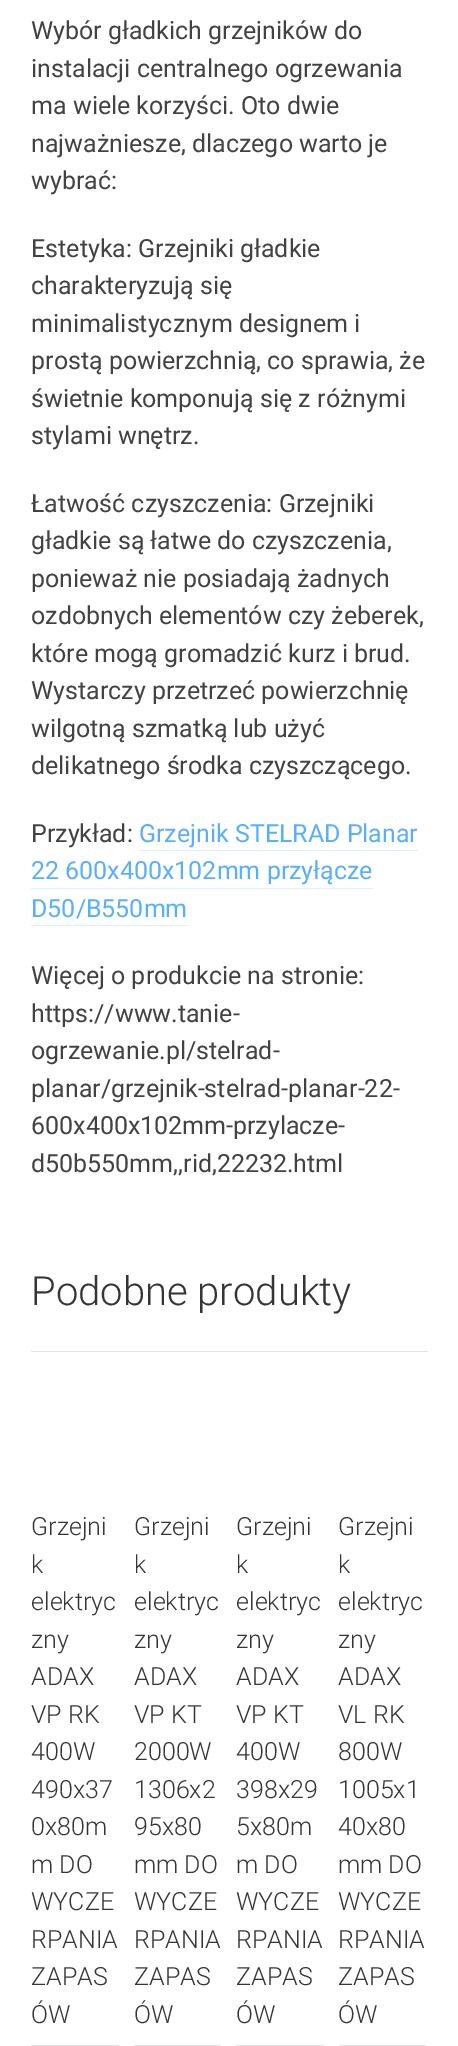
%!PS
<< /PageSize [458 2046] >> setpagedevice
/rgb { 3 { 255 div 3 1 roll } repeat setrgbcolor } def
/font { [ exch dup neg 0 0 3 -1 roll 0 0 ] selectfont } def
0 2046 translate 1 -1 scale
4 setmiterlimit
255 255 255 rgb
0 0 458 2046 rectfill
[
  [139 850 279 1 222 239 253]
  [31 888 342 1 222 239 253]
  [31 925 157 1 222 239 253]
  [31 1351 397 1 227 227 227]
  [31 2045 88 1 227 227 227]
  [134 2045 87 1 227 227 227]
  [236 2045 88 1 227 227 227]
  [339 2045 87 1 227 227 227]
] { aload pop rgb rectfill } forall
/Roboto-Regular 25 font
66 66 66 rgb
[
  [(Wybór gładkich grzejników do) 31 39]
  [(instalacji centralnego ogrzewania) 31 77]
  [(ma wiele korzyści. Oto dwie) 31 114]
  [(najważniesze, dlaczego warto je) 31 152]
  [(wybrać:) 31 189]
  [(Estetyka: Grzejniki gładkie) 31 257]
  [(charakteryzują się) 31 294]
  [(minimalistycznym designem i) 31 332]
  [(prostą powierzchnią, co sprawia, że) 31 369]
  [(świetnie komponują się z różnymi) 31 407]
  [(stylami wnętrz.) 31 444]
  [(Łatwość czyszczenia: Grzejniki) 31 512]
  [(gładkie są łatwe do czyszczenia,) 31 549]
  [(ponieważ nie posiadają żadnych) 31 587]
  [(ozdobnych elementów czy żeberek,) 31 624]
  [(które mogą gromadzić kurz i brud.) 31 662]
  [(Wystarczy przetrzeć powierzchnię) 31 699]
  [(wilgotną szmatką lub użyć) 31 737]
  [(delikatnego środka czyszczącego.) 31 774]
  [(Przykład:) 31 842]
] { aload pop moveto show } forall
89 176 246 rgb
[
  [(Grzejnik STELRAD Planar) 139 842]
  [(22 600x400x102mm przyłącze) 31 879]
  [(D50/B550mm) 31 917]
] { aload pop moveto show } forall
66 66 66 rgb
[
  [(Więcej o produkcie na stronie:) 31 984]
  [(https://www.tanie-) 31 1022]
  [(ogrzewanie.pl/stelrad-) 31 1059]
  [(planar/grzejnik-stelrad-planar-22-) 31 1097]
  [(600x400x102mm-przylacze-) 31 1134]
  [(d50b550mm,,rid,22232.html) 31 1172]
] { aload pop moveto show } forall
/Roboto-Light 40 font
53 53 53 rgb
31 1305 moveto (Podobne produkty) show
/Roboto-Light 25 font
[
  [(Grzejni) 31 1535]
  [(k) 31 1573]
  [(elektryc) 31 1610]
  [(zny) 31 1648]
  [(ADAX) 31 1685]
  [(VP RK) 31 1723]
  [(400W) 31 1760]
  [(490x37) 31 1798]
  [(0x80m) 31 1835]
  [(m DO) 31 1873]
  [(WYCZE) 31 1910]
  [(RPANIA) 31 1948]
  [(ZAPAS) 31 1985]
  [(ÓW) 31 2023]
  [(Grzejni) 134 1535]
  [(k) 134 1573]
  [(elektryc) 134 1610]
  [(zny) 134 1648]
  [(ADAX) 134 1685]
  [(VP KT) 134 1723]
  [(2000W) 134 1760]
  [(1306x2) 134 1798]
  [(95x80) 134 1835]
  [(mm DO) 134 1873]
  [(WYCZE) 134 1910]
  [(RPANIA) 134 1948]
  [(ZAPAS) 134 1985]
  [(ÓW) 134 2023]
  [(Grzejni) 236 1535]
  [(k) 236 1573]
  [(elektryc) 236 1610]
  [(zny) 236 1648]
  [(ADAX) 236 1685]
  [(VP KT) 236 1723]
  [(400W) 236 1760]
  [(398x29) 236 1798]
  [(5x80m) 236 1835]
  [(m DO) 236 1873]
  [(WYCZE) 236 1910]
  [(RPANIA) 236 1948]
  [(ZAPAS) 236 1985]
  [(ÓW) 236 2023]
  [(Grzejni) 338 1535]
  [(k) 338 1573]
  [(elektryc) 338 1610]
  [(zny) 338 1648]
  [(ADAX) 338 1685]
  [(VL RK) 338 1723]
  [(800W) 338 1760]
  [(1005x1) 338 1798]
  [(40x80) 338 1835]
  [(mm DO) 338 1873]
  [(WYCZE) 338 1910]
  [(RPANIA) 338 1948]
  [(ZAPAS) 338 1985]
  [(ÓW) 338 2023]
] { aload pop moveto show } forall
showpage
